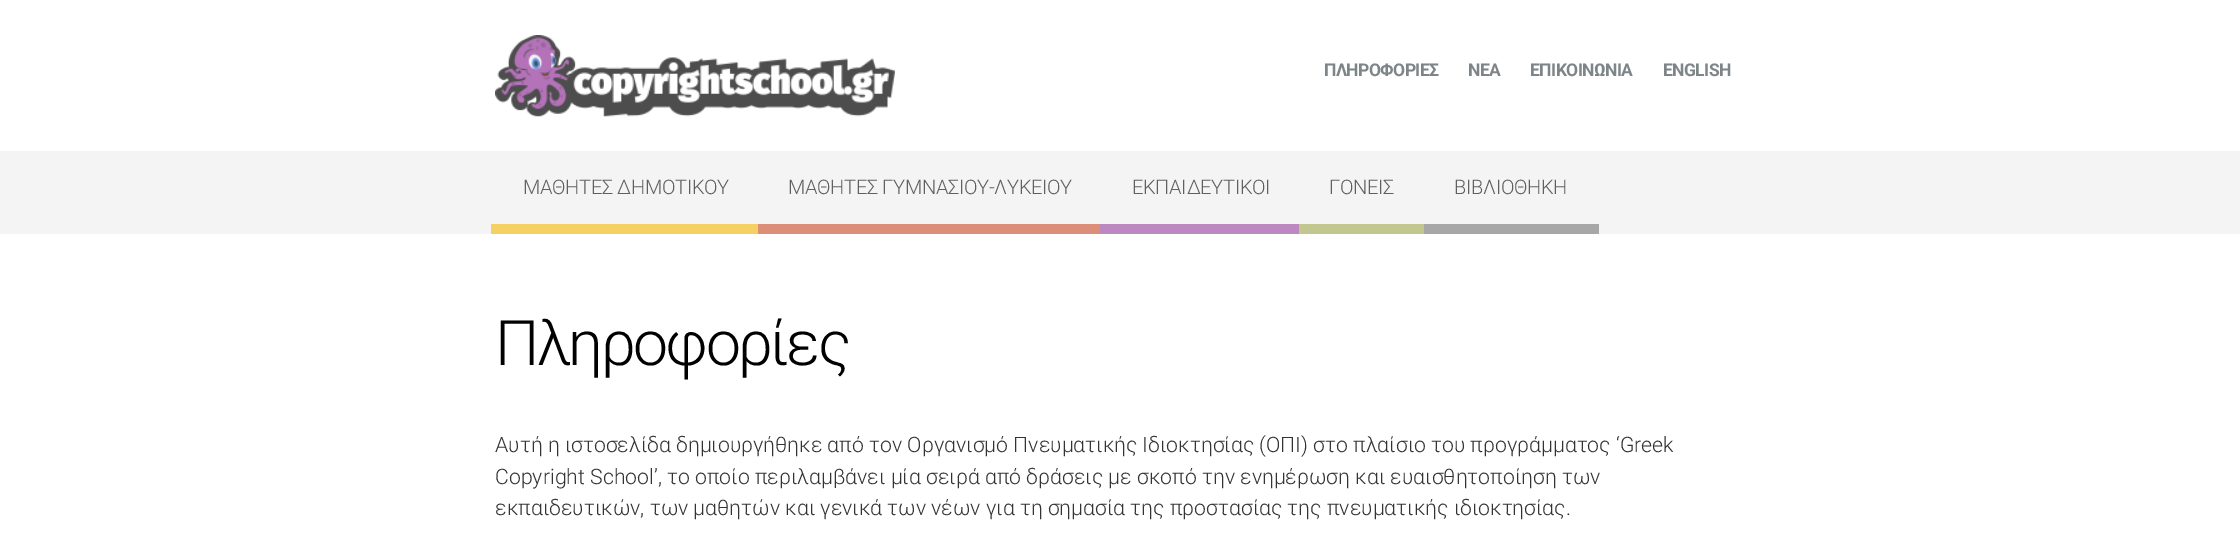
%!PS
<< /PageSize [2240 551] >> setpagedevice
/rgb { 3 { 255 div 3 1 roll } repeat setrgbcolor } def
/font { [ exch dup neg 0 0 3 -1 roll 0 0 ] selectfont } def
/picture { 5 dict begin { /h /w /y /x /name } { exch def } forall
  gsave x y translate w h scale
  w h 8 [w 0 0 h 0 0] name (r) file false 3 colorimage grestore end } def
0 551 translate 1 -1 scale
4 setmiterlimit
255 255 255 rgb
0 0 2240 551 rectfill
(img/1.rgb) 495 35 400 82 picture
[
  [0 151 2240 83 244 244 244]
  [491 224 267 10 245 209 100]
  [758 224 342 10 220 142 120]
  [1100 224 199 10 187 136 191]
  [1299 224 125 10 193 199 143]
  [1424 224 175 10 167 167 167]
] { aload pop rgb rectfill } forall
/Roboto-Bold 17.5 font
126 133 136 rgb
1324 76 moveto -0.6 0 (ΠΛΗΡΟΦΟΡΙΕΣ) ashow
1468 76 moveto -0.6 0 (ΝΕΑ) ashow
1530 76 moveto -0.6 0 (ΕΠΙΚΟΙΝΩΝΙΑ) ashow
1663 76 moveto -0.6 0 (ENGLISH) ashow
/Roboto-Light 20 font
97 95 98 rgb
523 194 moveto -0.3 0 (ΜΑΘΗΤΕΣ ΔΗΜΟΤΙΚΟΥ) ashow
788 194 moveto -0.3 0 (ΜΑΘΗΤΕΣ ΓΥΜΝΑΣΙΟΥ-ΛΥΚΕΙΟΥ) ashow
1132 194 moveto -0.3 0 (ΕΚΠΑΙΔΕΥΤΙΚΟΙ) ashow
1329 194 moveto -0.3 0 (ΓΟΝΕΙΣ) ashow
1454 194 moveto -0.3 0 (ΒΙΒΛΙΟΘΗΚΗ) ashow
/Roboto-Light 62.5 font
0 0 0 rgb
495 365 moveto -2.6 0 (Πληροφορίες) ashow
/Roboto-Light 21.25 font
51 51 51 rgb
[
  [(Αυτή η ιστοσελίδα δημιουργήθηκε από τον Οργανισμό Πνευματικής Ιδιοκτησίας \(ΟΠΙ\) στο πλαίσιο του προγράμματος ‘Greek) 495 452]
  [(Copyright School’, το οποίο περιλαμβάνει μία σειρά από δράσεις με σκοπό την ενημέρωση και ευαισθητοποίηση των) 495 484]
  [(εκπαιδευτικών, των μαθητών και γενικά των νέων για τη σημασία της προστασίας της πνευματικής ιδιοκτησίας.) 495 515]
] { aload pop moveto show } forall
showpage
